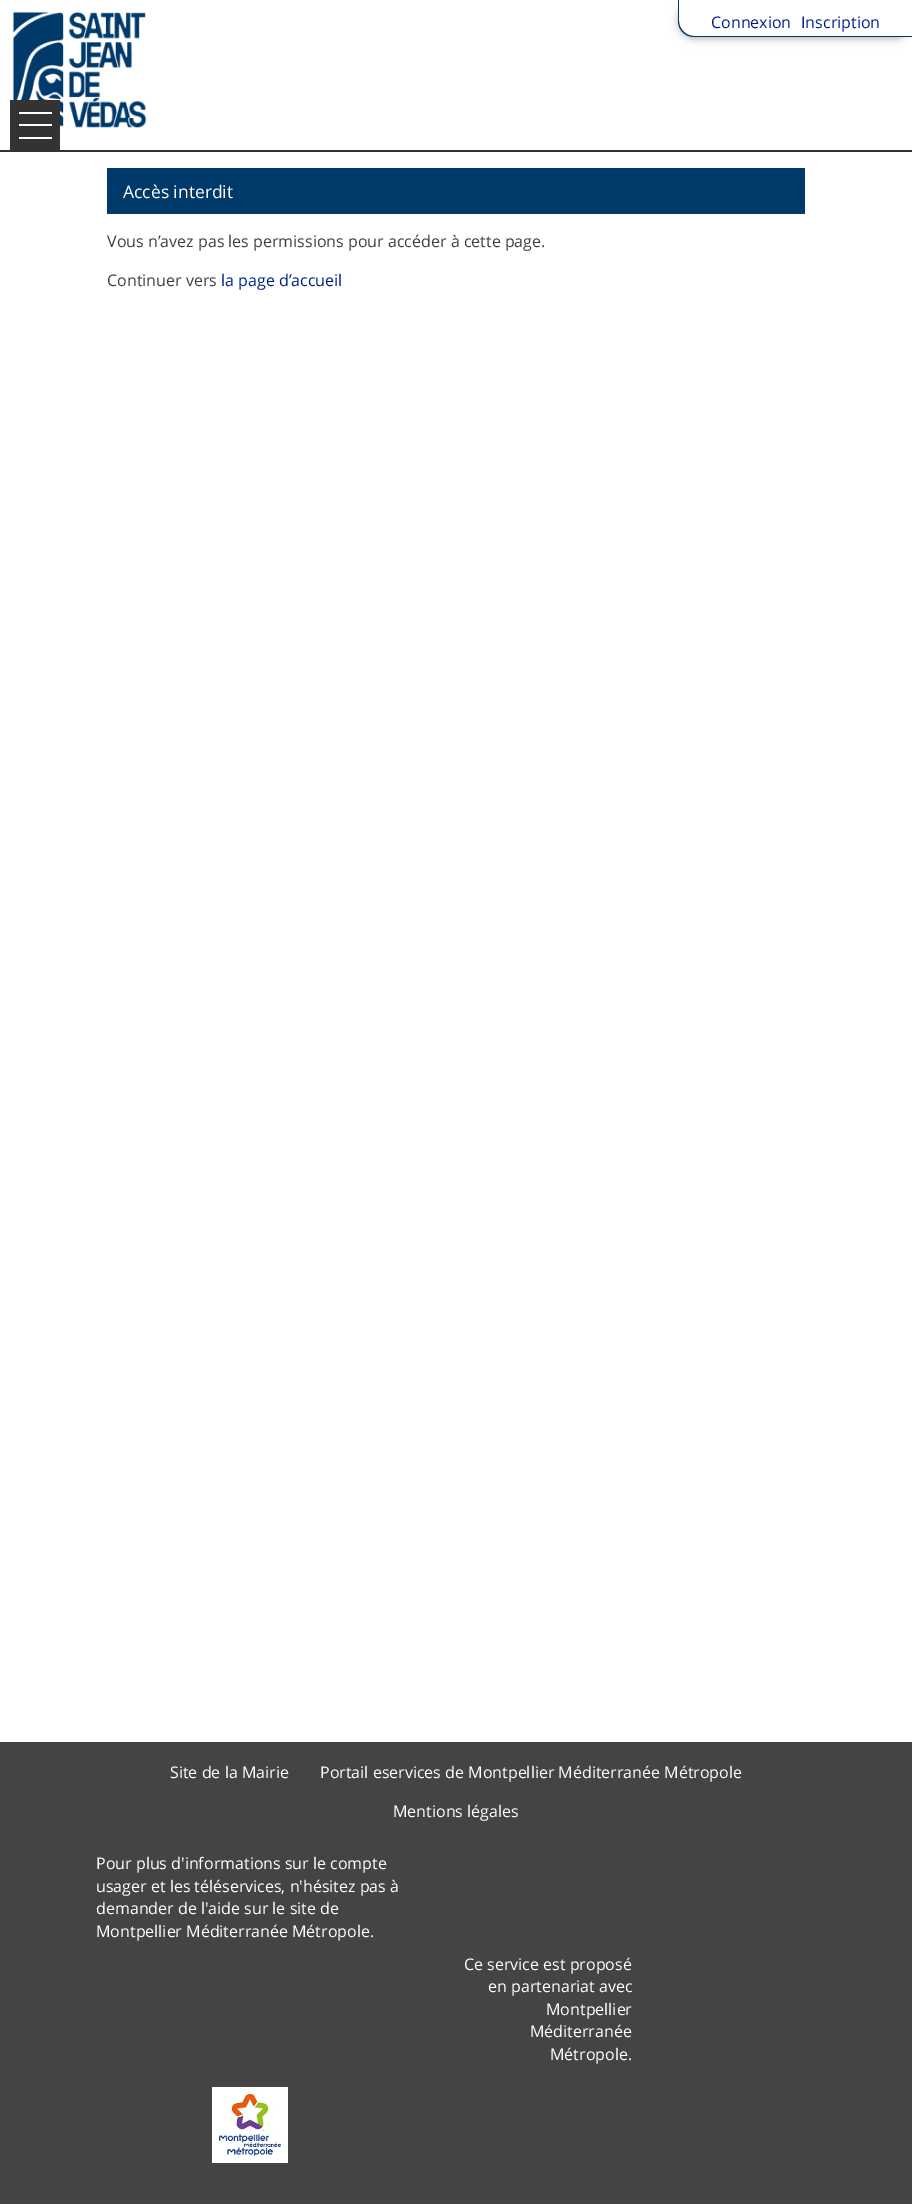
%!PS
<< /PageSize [912 2204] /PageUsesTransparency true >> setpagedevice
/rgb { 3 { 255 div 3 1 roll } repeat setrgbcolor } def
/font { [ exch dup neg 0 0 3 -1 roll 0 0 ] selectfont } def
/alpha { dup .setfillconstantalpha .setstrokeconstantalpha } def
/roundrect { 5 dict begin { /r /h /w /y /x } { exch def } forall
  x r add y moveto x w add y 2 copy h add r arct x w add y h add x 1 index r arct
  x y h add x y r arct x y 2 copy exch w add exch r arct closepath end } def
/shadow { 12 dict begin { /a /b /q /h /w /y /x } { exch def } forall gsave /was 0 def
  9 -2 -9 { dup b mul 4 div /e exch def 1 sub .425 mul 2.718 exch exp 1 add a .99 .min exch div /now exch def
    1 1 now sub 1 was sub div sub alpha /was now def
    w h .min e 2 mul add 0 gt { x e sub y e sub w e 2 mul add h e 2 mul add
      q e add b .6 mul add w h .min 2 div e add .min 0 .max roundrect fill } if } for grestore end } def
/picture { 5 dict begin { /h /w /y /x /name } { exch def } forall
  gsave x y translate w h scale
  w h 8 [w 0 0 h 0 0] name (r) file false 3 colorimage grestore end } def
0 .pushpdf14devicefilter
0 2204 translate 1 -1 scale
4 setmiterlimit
255 255 255 rgb
0 0 912 2204 rectfill
(img/1.rgb) 12 11 135 117 picture
0 0 0 rgb
678 2 234 37 16 5 0.12 shadow
678 2 234 37 16 2.5 0.16 shadow
255 255 255 rgb
678 0 moveto 912 0 lineto 912 37 lineto 694 37 lineto 685 37 678 30 678 21 curveto closepath fill
0 58 107 rgb
678 0 moveto 912 0 lineto 912 37 lineto 694 37 lineto 685 37 678 30 678 21 curveto closepath 679 0 moveto 912 0 lineto 912 36 lineto 694 36 lineto 686 36 679 29 679 21 curveto closepath eofill
[
  [10 100 50 50 51 51 51]
  [19 112 33 2 255 255 255]
  [19 124 33 2 255 255 255]
  [19 137 33 2 255 255 255]
  [0 150 912 2 51 51 51]
  [107 168 698 46 0 58 107]
  [0 1742 912 462 68 68 68]
] { aload pop rgb rectfill } forall
(img/2.rgb) 212 2087 76 76 picture
/OpenSans-Regular 16 font
0 34 136 rgb
711 28 moveto (Connexion) show
801 28 moveto (Inscription) show
/OpenSans-Regular 17.5 font
255 255 255 rgb
123 198 moveto (Accès interdit) show
/OpenSans-Regular 16 font
63 63 63 rgb
107 247 moveto (Vous n’avez pas les permissions pour accéder à cette page.) show
107 286 moveto (Continuer vers) show
0 34 136 rgb
221 286 moveto (la page d’accueil) show
255 255 255 rgb
[
  [(Site de la Mairie) 170 1778]
  [(Portail eservices de Montpellier Méditerranée Métropole) 320 1778]
  [(Mentions légales) 393 1817]
  [(Pour plus d'informations sur le compte) 96 1869]
  [(usager et les téléservices, n'hésitez pas à) 96 1892]
  [(demander de l'aide sur le site de) 96 1914]
  [(Montpellier Méditerranée Métropole.) 96 1937]
  [(Ce service est proposé) 464 1970]
  [(en partenariat avec) 488 1992]
  [(Montpellier) 546 2015]
  [(Méditerranée) 530 2037]
  [(Métropole.) 550 2060]
] { aload pop moveto show } forall
.poppdf14devicefilter showpage
